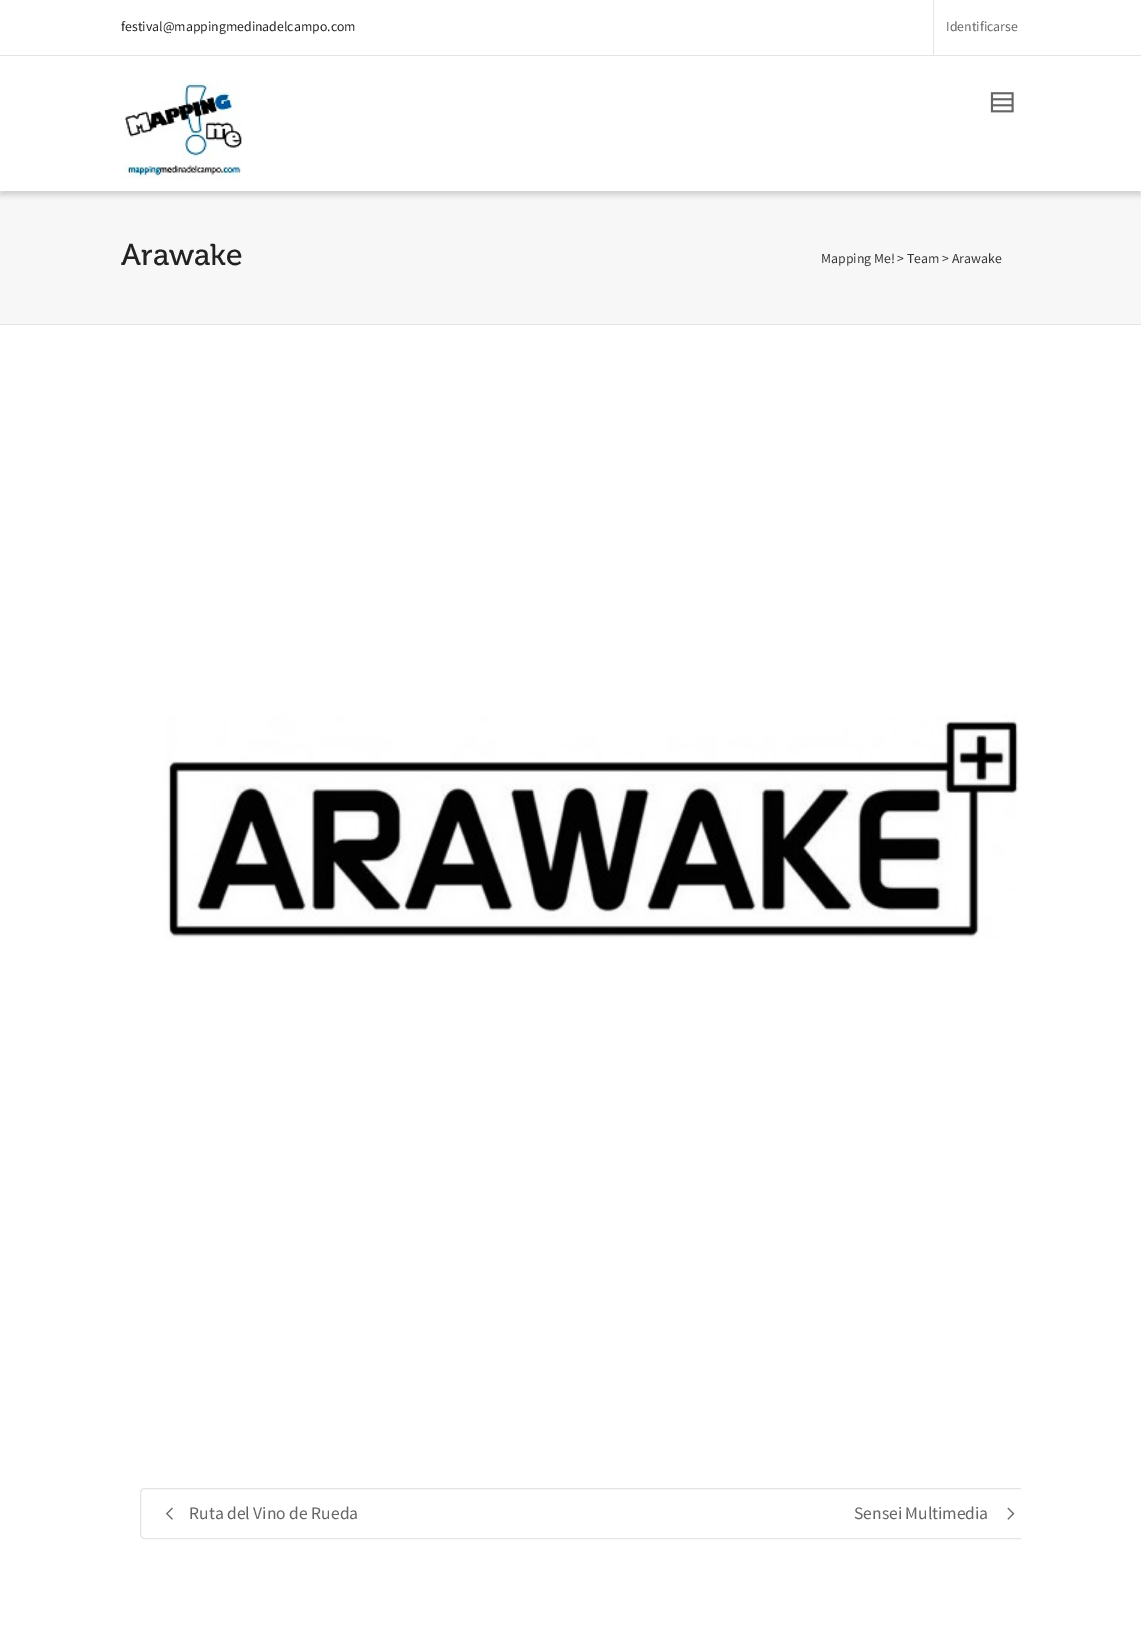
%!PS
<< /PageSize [1141 1645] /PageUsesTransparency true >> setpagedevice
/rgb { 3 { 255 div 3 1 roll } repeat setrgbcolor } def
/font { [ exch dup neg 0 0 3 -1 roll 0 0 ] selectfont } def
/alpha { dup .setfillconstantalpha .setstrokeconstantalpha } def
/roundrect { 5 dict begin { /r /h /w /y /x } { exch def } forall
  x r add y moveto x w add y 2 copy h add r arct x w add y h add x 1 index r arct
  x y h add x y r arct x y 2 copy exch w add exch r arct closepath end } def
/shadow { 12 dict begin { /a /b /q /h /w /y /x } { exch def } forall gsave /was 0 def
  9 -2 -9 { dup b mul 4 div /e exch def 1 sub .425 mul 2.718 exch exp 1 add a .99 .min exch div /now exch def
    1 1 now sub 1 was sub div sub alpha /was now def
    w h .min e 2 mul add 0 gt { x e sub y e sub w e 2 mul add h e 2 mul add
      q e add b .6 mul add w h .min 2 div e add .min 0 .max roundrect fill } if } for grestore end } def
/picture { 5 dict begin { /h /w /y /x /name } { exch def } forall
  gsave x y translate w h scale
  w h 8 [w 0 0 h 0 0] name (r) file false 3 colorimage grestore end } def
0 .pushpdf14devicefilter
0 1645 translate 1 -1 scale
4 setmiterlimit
255 255 255 rgb
0 0 1141 1645 rectfill
247 247 247 rgb
0 191 1141 133 rectfill
0 0 0 rgb
0 4 1141 191 0 3 0.1 shadow
0 4 1141 191 0 3 0.05 shadow
[
  [0 0 1141 191 255 255 255]
  [0 55 1141 1 228 228 228]
  [933 0 1 55 228 228 228]
] { aload pop rgb rectfill } forall
(img/1.rgb) 124 81 118 98 picture
(img/2.rgb) 990 92 24 21 picture
0 324 1141 1 rectfill
(img/3.rgb) 164 715 855 224 picture
gsave
121 325 900 1320 rectclip
140.5 1488.5 899 50 4.5 roundrect stroke
grestore
(img/4.rgb) 166 1507 7 13 picture
(img/5.rgb) 1007 1507 8 13 picture
/SourceSansPro-Regular 13.75 font
34 34 34 rgb
121 31 moveto (festival@mappingmedinadelcampo.com) show
102 102 102 rgb
946 31 moveto (Identificarse) show
/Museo-Regular 30 font
34 34 34 rgb
121 265 moveto (Arawake) show
/SourceSansPro-Regular 13.75 font
51 51 51 rgb
821 263 moveto (Mapping Me! > Team > Arawake) show
/SourceSansPro-Regular 17.5 font
102 102 102 rgb
189 1519 moveto (Ruta del Vino de Rueda) show
854 1519 moveto (Sensei Multimedia) show
.poppdf14devicefilter showpage
